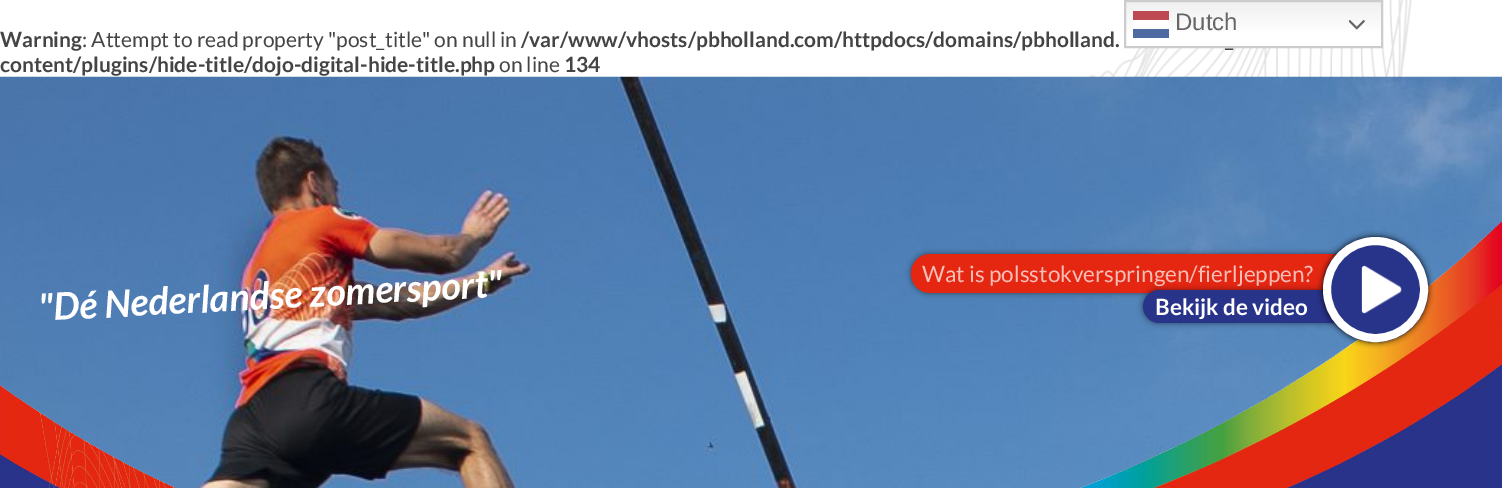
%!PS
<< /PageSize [1502 488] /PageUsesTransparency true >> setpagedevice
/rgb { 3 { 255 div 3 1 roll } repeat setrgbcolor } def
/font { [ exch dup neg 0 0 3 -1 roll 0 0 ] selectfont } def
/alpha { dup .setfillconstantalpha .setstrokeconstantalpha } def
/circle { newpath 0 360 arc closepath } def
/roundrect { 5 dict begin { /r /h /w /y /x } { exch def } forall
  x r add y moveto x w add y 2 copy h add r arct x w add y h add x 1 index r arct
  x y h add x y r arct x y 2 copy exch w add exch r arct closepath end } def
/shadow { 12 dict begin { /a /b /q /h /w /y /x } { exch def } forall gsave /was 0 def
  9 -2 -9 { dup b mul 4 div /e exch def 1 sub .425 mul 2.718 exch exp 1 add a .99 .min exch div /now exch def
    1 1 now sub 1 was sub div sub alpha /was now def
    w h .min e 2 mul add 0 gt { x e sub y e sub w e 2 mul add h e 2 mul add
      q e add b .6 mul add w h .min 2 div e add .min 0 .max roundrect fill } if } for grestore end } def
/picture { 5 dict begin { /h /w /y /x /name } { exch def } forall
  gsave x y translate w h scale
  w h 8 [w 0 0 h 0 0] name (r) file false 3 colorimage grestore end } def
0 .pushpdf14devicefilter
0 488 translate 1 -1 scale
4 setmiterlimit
255 255 255 rgb
0 0 1502 488 rectfill
(img/1.rgb) 1089 0 323 77 picture
gsave 1126 2 moveto 1381 2 lineto 1381 46 lineto 1126 46 lineto closepath clip newpath
<< /ShadingType 2 /ColorSpace /DeviceRGB /Coords [1253 0 1253 48] /Extend [true true] /Function << /FunctionType 3 /Domain [0 1] /Functions [<< /FunctionType 2 /Domain [0 1] /C0 [0.937 0.937 0.937] /C1 [1 1 1] /N 1 >> << /FunctionType 2 /Domain [0 1] /C0 [1 1 1] /C1 [1 1 1] /N 1 >>] /Bounds [0.7] /Encode [0 1 0 1] >> >> shfill grestore
204 204 204 rgb
2 setlinewidth
1125 1 257 46 rectstroke
190 73 83 rgb
1133 11 36 9 rectfill
0.8 alpha
255 255 255 rgb
1133 20 36 6 rectfill
1 alpha
(img/2.rgb) 1349 20 16 10 picture
77 107 162 rgb
1133 29 36 9 rectfill
(img/3.rgb) 0 76 1502 412 picture
0 0 0 rgb
911 254 480 39 19.5 3 0.5 shadow
229 39 18 rgb
930.5 254 moveto 1391 254 lineto 1391 293 lineto 930.5 293 lineto 919.5 293 911 284.5 911 273.5 curveto 911 262.5 919.5 254 930.5 254 curveto closepath fill
0 0 0 rgb
1143 290 225 33 16.5 3 0.5 shadow
40 51 138 rgb
1159.5 290 moveto 1368 290 lineto 1368 323 lineto 1159.5 323 lineto 1150.5 323 1143 315.5 1143 306.5 curveto 1143 297.5 1150.5 290 1159.5 290 curveto closepath fill
0 0 0 rgb
1323 237 105 105 52.5 3 1 shadow
40 51 138 rgb
1375.5 289.5 52.5 circle fill
(img/4.rgb) 1361 265 41 49 picture
255 255 255 rgb
8 setlinewidth
1375.5 289.5 48.5 circle stroke
/LiberationSans-Regular 24 font
102 102 102 rgb
1175 30 moveto (Dutch) show
/Lato-Bold 21 font
68 68 68 rgb
0 47 moveto (Warning) show
/Lato-Regular 21 font
82 47 moveto (: Attempt to read property "post_title" on null in) show
/Lato-Bold 21 font
[
  [(/var/www/vhosts/pbholland.com/httpdocs/domains/pbholland.) 521 47]
  [(_) 1225 47]
  [(content/plugins/hide-title/dojo-digital-hide-title.php) 0 72]
] { aload pop moveto show } forall
/Lato-Regular 21 font
499 72 moveto (on line) show
/Lato-Bold 21 font
564 72 moveto (134) show
/Lato-BoldItalic 37.75 font
255 255 255 rgb
gsave 39 321 translate -3 rotate 0 0 moveto ("Dé Nederlandse zomersport") show grestore
/Lato-Regular 22.5 font
247 190 184 rgb
922 282 moveto (Wat is polsstokverspringen/fierljeppen?) show
/Lato-Bold 22.5 font
255 255 255 rgb
1155 315 moveto (Bekijk de video) show
.poppdf14devicefilter showpage
